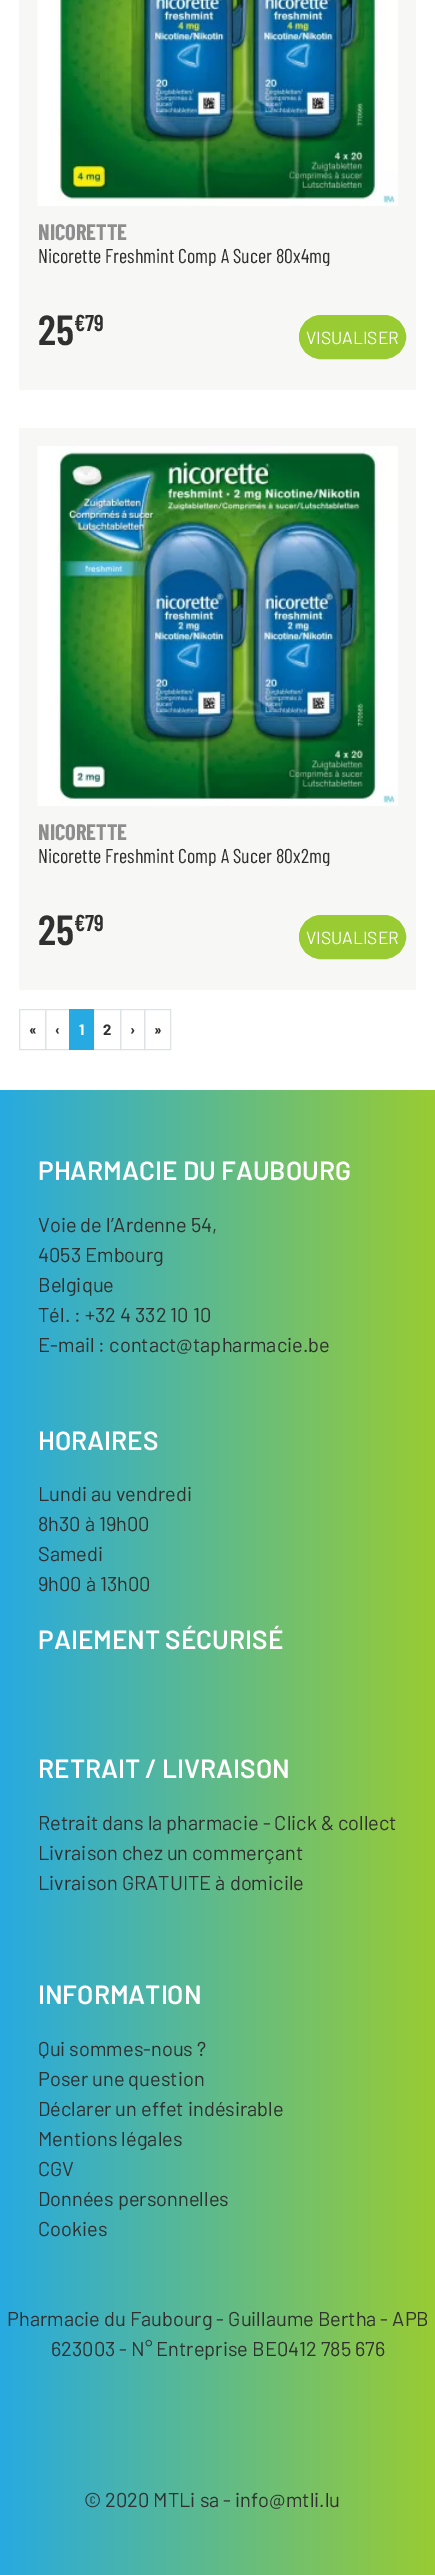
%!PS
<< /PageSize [435 2575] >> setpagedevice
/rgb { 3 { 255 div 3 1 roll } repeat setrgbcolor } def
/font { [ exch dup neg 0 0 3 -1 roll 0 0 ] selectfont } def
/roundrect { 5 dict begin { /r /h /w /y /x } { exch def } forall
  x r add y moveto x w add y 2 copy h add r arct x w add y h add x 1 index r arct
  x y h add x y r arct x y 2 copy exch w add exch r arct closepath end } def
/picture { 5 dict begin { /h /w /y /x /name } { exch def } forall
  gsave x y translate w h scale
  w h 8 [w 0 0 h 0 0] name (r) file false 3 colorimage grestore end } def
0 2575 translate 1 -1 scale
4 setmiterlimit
255 255 255 rgb
0 0 435 2575 rectfill
247 247 245 rgb
19 0 397 390 rectfill
255 255 255 rgb
38 0 360 206 rectfill
(img/1.rgb) 37 0 361 206 picture
153 204 51 rgb
299.5 315.5 106 43 21.5 roundrect gsave fill grestore
stroke
247 247 245 rgb
19 428 397 562 rectfill
255 255 255 rgb
38 446 360 360 rectfill
(img/2.rgb) 37 446 361 360 picture
153 204 51 rgb
299.5 915.5 106 43 21.5 roundrect gsave fill grestore
stroke
222 226 230 rgb
19.5 1009.5 26 40 rectstroke
45.5 1009.5 24 40 rectstroke
93.5 1009.5 27 40 rectstroke
39 170 225 rgb
69 1009 25 41 rectfill
222 226 230 rgb
120.5 1009.5 24 40 rectstroke
144.5 1009.5 26 40 rectstroke
gsave 0 1090 moveto 435 1090 lineto 435 2575 lineto 0 2575 lineto closepath clip newpath
<< /ShadingType 2 /ColorSpace /DeviceRGB /Coords [0 1833 435 1833] /Extend [true true] /Function << /FunctionType 2 /Domain [0 1] /C0 [0.153 0.667 0.882] /C1 [0.6 0.8 0.2] /N 1 >> >> shfill grestore
/BarlowCondensed-Bold 22.5 font
142 142 142 rgb
38 240 moveto (NICORETTE) show
gsave
38 244 360 22 rectclip
/BarlowCondensed-Regular 20 font
48 48 48 rgb
38 263 moveto (Nicorette Freshmint Comp A Sucer 80x4mg) show
grestore
/BarlowCondensed-SemiBold 42 font
48 48 48 rgb
38 345 moveto (25) show
/BarlowCondensed-SemiBold 23 font
74 331 moveto (€79) show
/Barlow-Regular 17.5 font
255 255 255 rgb
306 344 moveto (VISUALISER) show
/BarlowCondensed-Bold 22.5 font
142 142 142 rgb
38 840 moveto (NICORETTE) show
gsave
38 844 360 22 rectclip
/BarlowCondensed-Regular 20 font
48 48 48 rgb
38 863 moveto (Nicorette Freshmint Comp A Sucer 80x2mg) show
grestore
/BarlowCondensed-SemiBold 42 font
48 48 48 rgb
38 945 moveto (25) show
/BarlowCondensed-SemiBold 23 font
74 931 moveto (€79) show
/Barlow-Regular 17.5 font
255 255 255 rgb
306 944 moveto (VISUALISER) show
/Barlow-Bold 15 font
48 48 48 rgb
29 1035 moveto («) show
55 1035 moveto (‹) show
255 255 255 rgb
79 1035 moveto (1) show
48 48 48 rgb
[
  [(2) 103 1035]
  [(›) 130 1035]
  [(») 154 1035]
] { aload pop moveto show } forall
/Barlow-SemiBold 26.25 font
255 255 255 rgb
38 1180 moveto (PHARMACIE DU FAUBOURG) show
/Barlow-Regular 20 font
48 48 48 rgb
[
  [(Voie de l’Ardenne 54,) 38 1232]
  [(4053 Embourg) 38 1262]
  [(Belgique) 38 1292]
  [(Tél. : +32 4 332 10 10) 38 1322]
  [(E-mail : contact@tapharmacie.be) 38 1352]
] { aload pop moveto show } forall
/Barlow-SemiBold 26.25 font
255 255 255 rgb
38 1450 moveto (HORAIRES) show
/Barlow-Regular 20 font
48 48 48 rgb
[
  [(Lundi au vendredi) 38 1501]
  [(8h30 à 19h00) 38 1531]
  [(Samedi) 38 1561]
  [(9h00 à 13h00) 38 1591]
] { aload pop moveto show } forall
/Barlow-SemiBold 26.25 font
255 255 255 rgb
38 1649 moveto (PAIEMENT SÉCURISÉ) show
38 1778 moveto (RETRAIT / LIVRAISON) show
/Barlow-Regular 20 font
48 48 48 rgb
[
  [(Retrait dans la pharmacie - Click & collect) 38 1830]
  [(Livraison chez un commerçant) 38 1860]
  [(Livraison GRATUITE à domicile) 38 1890]
] { aload pop moveto show } forall
/Barlow-SemiBold 26.25 font
255 255 255 rgb
38 2004 moveto (INFORMATION) show
/Barlow-Regular 20 font
48 48 48 rgb
[
  [(Qui sommes-nous ?) 38 2056]
  [(Poser une question) 38 2086]
  [(Déclarer un effet indésirable) 38 2116]
  [(Mentions légales) 38 2146]
  [(CGV) 38 2176]
  [(Données personnelles) 38 2206]
  [(Cookies) 38 2236]
  [(Pharmacie du Faubourg - Guillaume Bertha - APB) 7 2326]
  [(623003 - N° Entreprise BE0412 785 676) 51 2356]
  [(© 2020 MTLi sa - info@mtli.lu) 84 2507]
] { aload pop moveto show } forall
showpage
